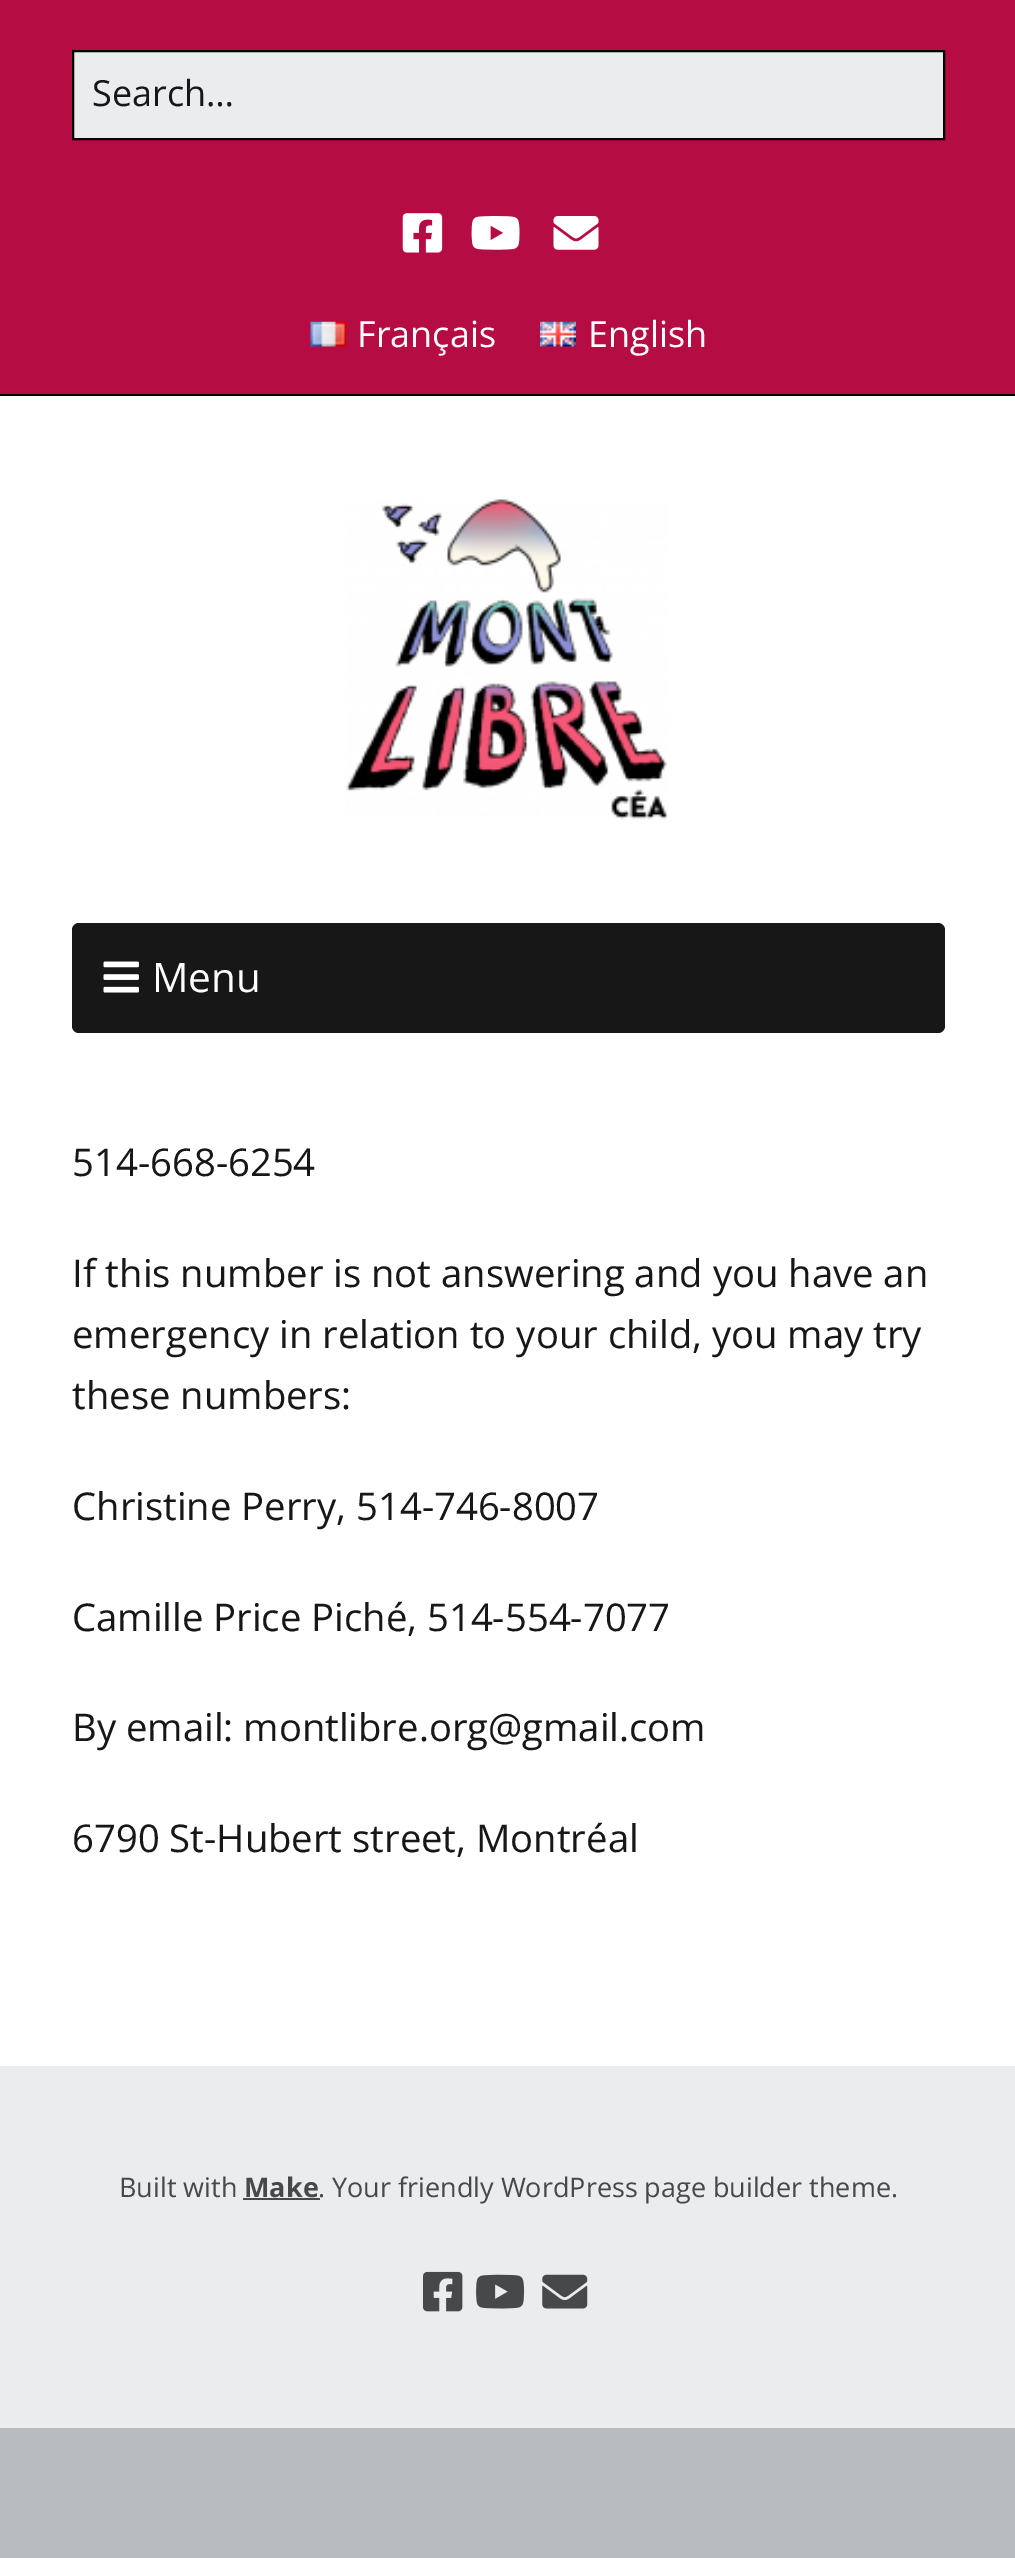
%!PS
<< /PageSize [1015 2558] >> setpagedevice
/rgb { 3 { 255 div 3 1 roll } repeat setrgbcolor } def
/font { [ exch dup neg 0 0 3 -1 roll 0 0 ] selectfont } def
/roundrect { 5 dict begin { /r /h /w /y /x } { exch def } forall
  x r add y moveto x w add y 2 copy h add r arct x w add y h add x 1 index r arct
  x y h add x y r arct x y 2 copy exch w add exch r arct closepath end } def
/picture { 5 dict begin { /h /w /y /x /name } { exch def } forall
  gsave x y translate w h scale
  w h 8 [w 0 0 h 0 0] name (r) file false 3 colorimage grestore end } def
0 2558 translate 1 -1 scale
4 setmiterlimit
185 188 191 rgb
0 0 1015 2558 rectfill
181 12 68 rgb
0 0 1015 394 rectfill
0 0 0 rgb
0 394 1015 2 rectfill
234 236 238 rgb
73 51 moveto 944 51 lineto 944 139 lineto 73 139 lineto closepath gsave fill grestore
0 0 0 rgb
2 setlinewidth
stroke
(img/1.rgb) 402 213 41 40 picture
(img/2.rgb) 471 216 49 34 picture
(img/3.rgb) 553 216 46 34 picture
(img/4.rgb) 310 321 37 26 picture
(img/5.rgb) 540 321 36 26 picture
255 255 255 rgb
0 396 1015 1670 rectfill
(img/6.rgb) 346 499 323 321 picture
23 23 23 rgb
72 923 873 110 7 roundrect fill
(img/7.rgb) 103 961 36 32 picture
234 236 238 rgb
0 2066 1015 362 rectfill
70 72 73 rgb
243 2198 77 2 rectfill
(img/8.rgb) 423 2271 40 41 picture
(img/9.rgb) 476 2274 49 35 picture
(img/10.rgb) 542 2274 46 35 picture
/OpenSans-Regular 36 font
23 23 23 rgb
92 106 moveto (Search…) show
255 255 255 rgb
357 347 moveto (Français) show
588 347 moveto (English) show
/OpenSans-Regular 40.5 font
152 992 moveto (Menu) show
/OpenSans-Regular 38.25 font
23 23 23 rgb
[
  [(514-668-6254) 72 1176]
  [(If this number is not answering and you have an) 72 1287]
  [(emergency in relation to your child, you may try) 72 1348]
  [(these numbers:) 72 1409]
  [(Christine Perry, 514-746-8007) 72 1520]
  [(Camille Price Piché, 514-554-7077) 72 1631]
  [(By email: montlibre.org@gmail.com) 72 1741]
  [(6790 St-Hubert street, Montréal) 72 1852]
] { aload pop moveto show } forall
/OpenSans-Regular 27 font
70 72 73 rgb
119 2197 moveto (Built with) show
/OpenSans-Bold 27 font
244 2197 moveto (Make) show
/OpenSans-Regular 27 font
318 2197 moveto (. Your friendly WordPress page builder theme.) show
showpage
